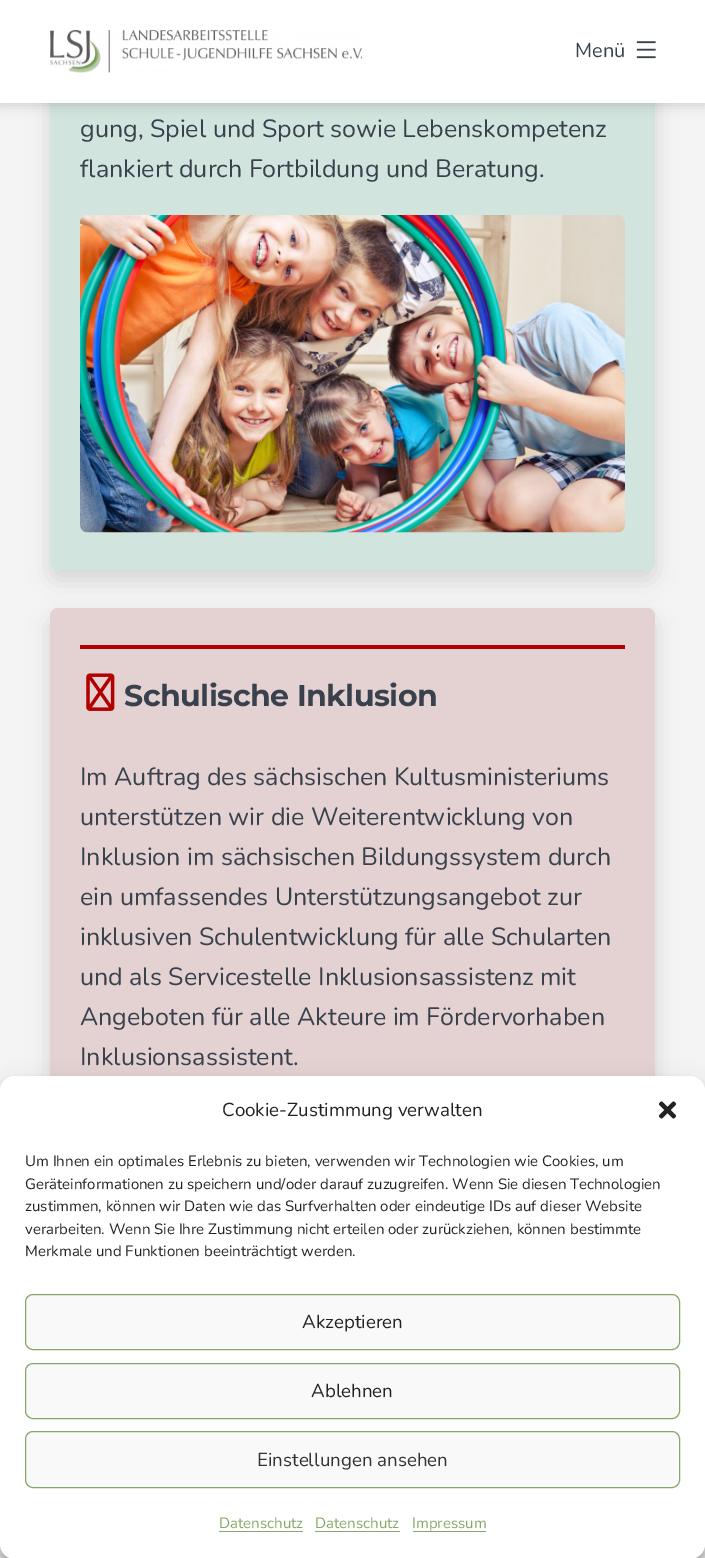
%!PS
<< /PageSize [705 1558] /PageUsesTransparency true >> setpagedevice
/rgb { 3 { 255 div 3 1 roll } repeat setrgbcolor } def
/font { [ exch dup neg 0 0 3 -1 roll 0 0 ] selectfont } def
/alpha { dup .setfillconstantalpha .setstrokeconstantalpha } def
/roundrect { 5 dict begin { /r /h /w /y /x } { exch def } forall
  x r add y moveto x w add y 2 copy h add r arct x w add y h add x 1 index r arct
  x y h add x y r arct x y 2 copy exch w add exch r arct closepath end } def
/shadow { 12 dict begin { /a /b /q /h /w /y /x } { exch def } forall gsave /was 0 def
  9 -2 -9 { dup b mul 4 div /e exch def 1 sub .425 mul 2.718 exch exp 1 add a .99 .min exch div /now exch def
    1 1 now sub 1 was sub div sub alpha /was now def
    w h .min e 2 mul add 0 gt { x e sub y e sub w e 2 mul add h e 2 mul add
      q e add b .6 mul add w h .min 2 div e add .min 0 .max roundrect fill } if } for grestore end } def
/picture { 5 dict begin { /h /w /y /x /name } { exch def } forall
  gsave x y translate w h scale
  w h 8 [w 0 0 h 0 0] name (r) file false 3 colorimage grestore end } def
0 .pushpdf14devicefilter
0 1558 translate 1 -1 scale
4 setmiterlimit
244 244 244 rgb
0 0 705 1558 rectfill
0 0 0 rgb
50 -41 605 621 8 11 0.12 shadow
209 228 221 rgb
50 -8 605 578 8 roundrect fill
0 0 0 rgb
0 3 705 102 0 6 0.16 shadow
255 255 255 rgb
0 0 705 103 rectfill
(img/1.rgb) 50 30 312 43 picture
(img/2.rgb) 636 41 20 18 picture
(img/3.rgb) 80 215 545 318 picture
0 0 0 rgb
50 618 605 850 8 11 0.12 shadow
228 209 209 rgb
50 608 605 850 8 roundrect fill
178 0 0 rgb
80 645 545 4 rectfill
(img/4.rgb) 86 673 29 38 picture
0 0 0 rgb
0 1084 705 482 15 4 0.23 shadow
0 1089 705 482 15 12.5 0.19 shadow
255 255 255 rgb
0 1076 705 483 15 roundrect fill
(img/5.rgb) 658 1101 19 18 picture
249 249 249 rgb
25.5 1294.5 654 55 7.5 roundrect gsave fill grestore
135 166 105 rgb
stroke
249 249 249 rgb
25.5 1363.5 654 55 7.5 roundrect gsave fill grestore
135 166 105 rgb
stroke
249 249 249 rgb
25.5 1431.5 654 56 7.5 roundrect gsave fill grestore
135 166 105 rgb
stroke
[
  [219 1531 84 1 135 166 105]
  [315 1531 85 1 135 166 105]
  [413 1531 73 1 135 166 105]
] { aload pop rgb rectfill } forall
/Nunito-Regular 20 font
57 65 77 rgb
575 57 moveto (Menü) show
/Nunito-Regular 25 font
80 137 moveto (gung, Spiel und Sport sowie Lebenskompetenz) show
80 177 moveto (flankiert durch Fortbildung und Beratung.) show
/Montserrat-Thin 30 font
124 706 moveto -0.5 0 (Schulische Inklusion) ashow
/Nunito-Regular 25 font
[
  [(Im Auftrag des sächsischen Kultusministeriums) 80 785]
  [(unterstützen wir die Weiterentwicklung von) 80 825]
  [(Inklusion im sächsischen Bildungssystem durch) 80 865]
  [(ein umfassendes Unterstützungsangebot zur) 80 905]
  [(inklusiven Schulentwicklung für alle Schularten) 80 945]
  [(und als Servicestelle Inklusionsassistenz mit) 80 985]
  [(Angeboten für alle Akteure im Fördervorhaben) 80 1025]
  [(Inklusionsassistent.) 80 1065]
] { aload pop moveto show } forall
/Nunito-Regular 18.75 font
34 34 34 rgb
222 1116 moveto (Cookie-Zustimmung verwalten) show
/Nunito-Regular 15 font
[
  [(Um Ihnen ein optimales Erlebnis zu bieten, verwenden wir Technologien wie Cookies, um) 25 1166]
  [(Geräteinformationen zu speichern und/oder darauf zuzugreifen. Wenn Sie diesen Technologien) 25 1189]
  [(zustimmen, können wir Daten wie das Surfverhalten oder eindeutige IDs auf dieser Website) 25 1211]
  [(verarbeiten. Wenn Sie Ihre Zustimmung nicht erteilen oder zurückziehen, können bestimmte) 25 1234]
  [(Merkmale und Funktionen beeinträchtigt werden.) 25 1256]
] { aload pop moveto show } forall
/Nunito-Regular 18.75 font
302 1328 moveto (Akzeptieren) show
311 1397 moveto (Ablehnen) show
51 51 51 rgb
257 1466 moveto (Einstellungen ansehen) show
/Nunito-Regular 15 font
135 166 105 rgb
[
  [(Datenschutz) 219 1528]
  [(Datenschutz) 315 1528]
  [(Impressum) 412 1528]
] { aload pop moveto show } forall
.poppdf14devicefilter showpage
